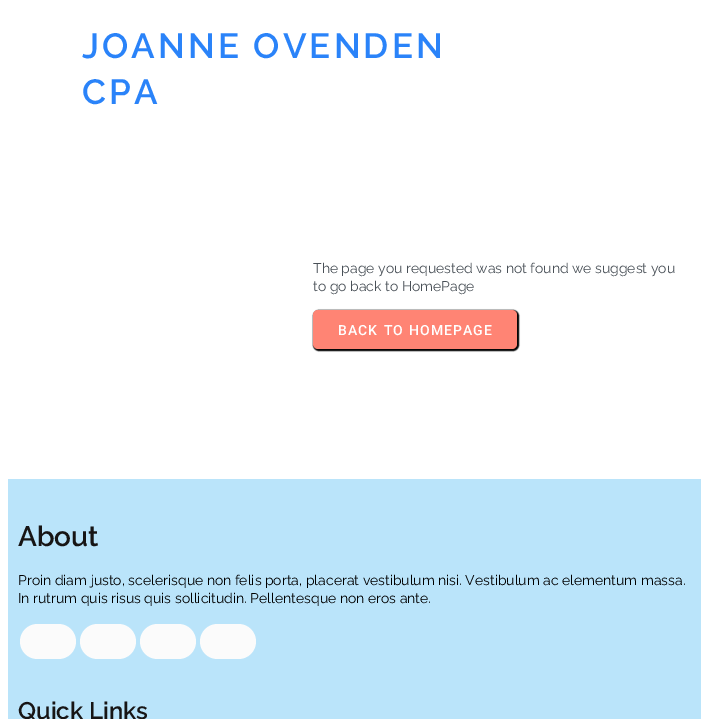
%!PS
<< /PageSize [709 719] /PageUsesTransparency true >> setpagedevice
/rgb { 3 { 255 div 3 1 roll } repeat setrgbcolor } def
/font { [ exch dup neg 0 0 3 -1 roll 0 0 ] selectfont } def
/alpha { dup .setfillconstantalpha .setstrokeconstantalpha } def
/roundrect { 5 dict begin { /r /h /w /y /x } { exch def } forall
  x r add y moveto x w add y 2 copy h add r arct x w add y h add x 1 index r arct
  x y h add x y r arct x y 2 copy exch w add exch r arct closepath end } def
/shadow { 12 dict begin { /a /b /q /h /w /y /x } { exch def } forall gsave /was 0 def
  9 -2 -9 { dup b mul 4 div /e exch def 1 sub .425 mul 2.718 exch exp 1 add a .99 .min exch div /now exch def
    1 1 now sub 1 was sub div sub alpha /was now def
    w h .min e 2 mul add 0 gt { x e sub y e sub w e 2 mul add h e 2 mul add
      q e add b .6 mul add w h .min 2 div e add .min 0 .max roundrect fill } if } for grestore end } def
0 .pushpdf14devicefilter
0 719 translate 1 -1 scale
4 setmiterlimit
255 255 255 rgb
0 0 709 719 rectfill
0 0 0 rgb
313 310 206 41 6 0.5 1 shadow
255 132 116 rgb
313 310 204 39 5 roundrect fill
186 228 250 rgb
8 479 693 240 rectfill
251 251 251 rgb
20 624 56 35 17.5 roundrect fill
80 624 56 35 17.5 roundrect fill
140 624 56 35 17.5 roundrect fill
200 624 56 35 17.5 roundrect fill
/Raleway-SemiBold 35 font
42 131 249 rgb
82 58 moveto 3 0 (JOANNE OVENDEN) ashow
82 104 moveto 3 0 (CPA) ashow
/Raleway-Regular 14 font
73 80 87 rgb
313 273 moveto (The page you requested was not found we suggest you) show
313 291 moveto (to go back to HomePage) show
/Roboto-Medium 14 font
255 255 255 rgb
338 335 moveto 1 0 32 1 0 (BACK TO HOMEPAGE) awidthshow
/Raleway-SemiBold 28 font
23 21 21 rgb
18 546 moveto (About) show
/Raleway-Regular 14 font
0 0 0 rgb
18 585 moveto (Proin diam justo, scelerisque non felis porta, placerat vestibulum nisi. Vestibulum ac elementum massa.) show
18 603 moveto (In rutrum quis risus quis sollicitudin. Pellentesque non eros ante.) show
/Raleway-SemiBold 24 font
23 21 21 rgb
18 719 moveto (Quick Links) show
.poppdf14devicefilter showpage
